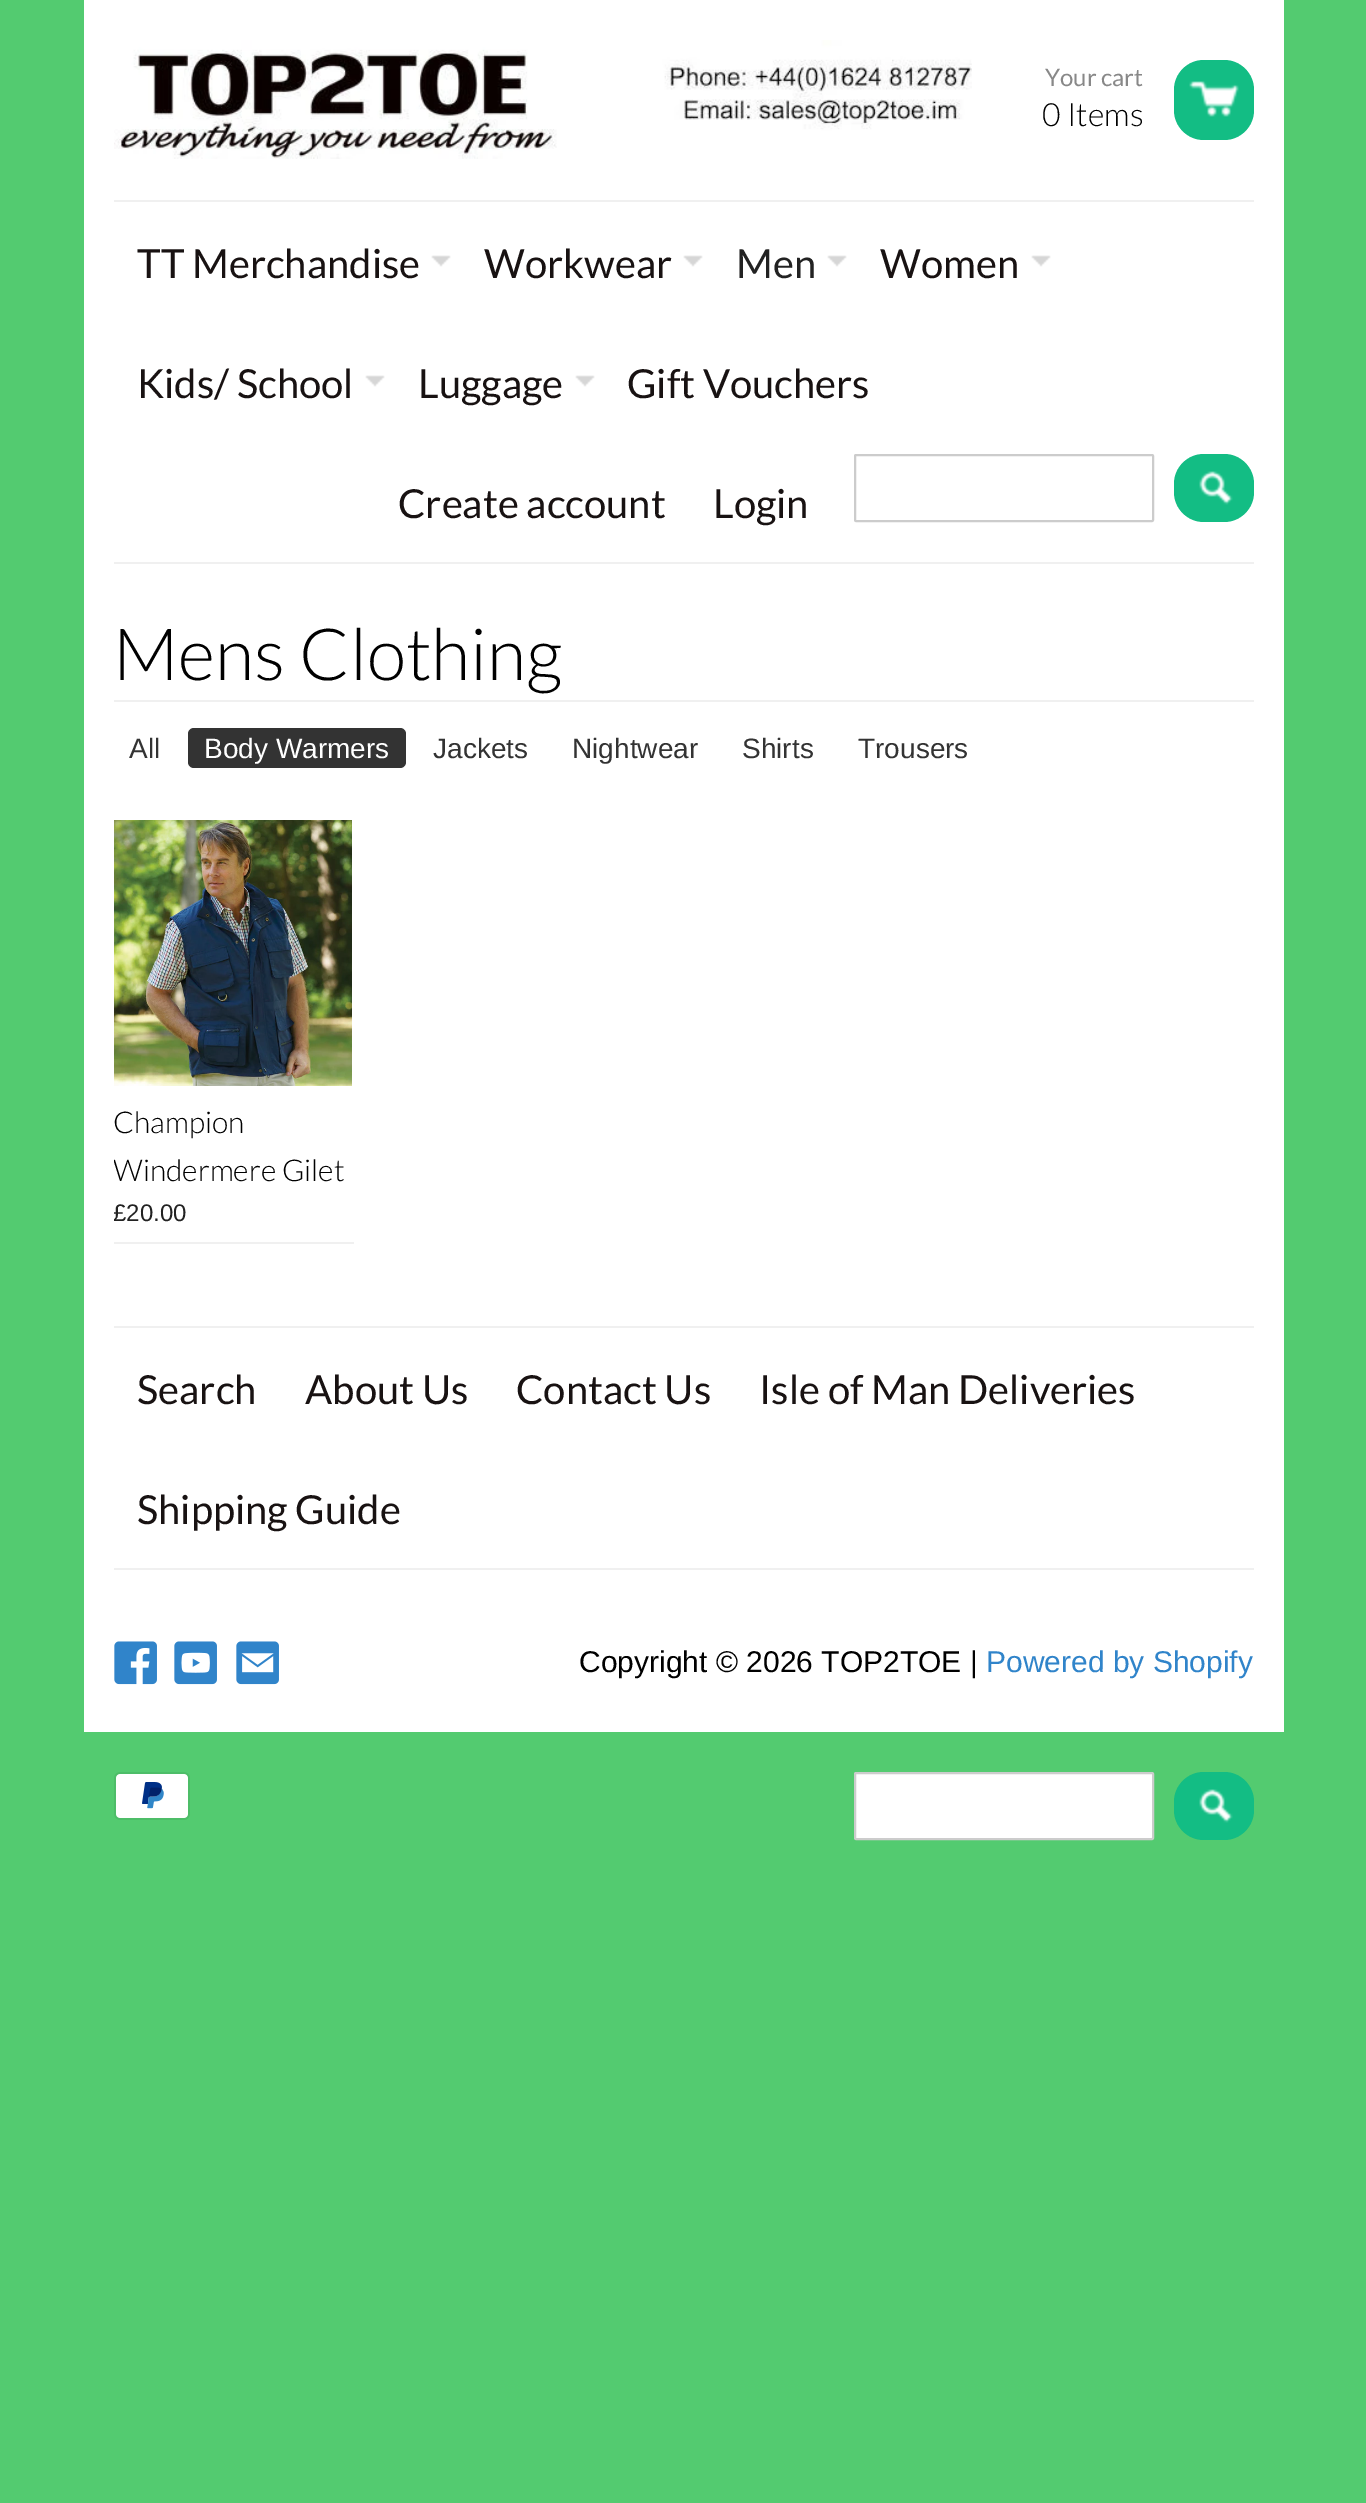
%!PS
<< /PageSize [1366 2503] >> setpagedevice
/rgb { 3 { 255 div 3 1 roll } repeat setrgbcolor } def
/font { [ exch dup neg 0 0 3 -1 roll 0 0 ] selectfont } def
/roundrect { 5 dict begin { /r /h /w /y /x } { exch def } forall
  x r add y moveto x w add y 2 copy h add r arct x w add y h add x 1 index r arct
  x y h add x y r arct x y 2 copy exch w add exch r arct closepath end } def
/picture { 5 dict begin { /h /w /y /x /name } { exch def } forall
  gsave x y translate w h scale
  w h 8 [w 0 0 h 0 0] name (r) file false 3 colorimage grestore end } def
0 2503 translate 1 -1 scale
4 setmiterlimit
83 203 112 rgb
0 0 1366 2503 rectfill
255 255 255 rgb
84 0 1200 1732 rectfill
(img/1.rgb) 114 40 858 119 picture
19 189 132 rgb
1174 60 80 80 30 roundrect fill
(img/2.rgb) 1189 81 50 36 picture
240 240 240 rgb
114 200 1140 2 rectfill
114 562 1140 2 rectfill
(img/3.rgb) 431 255 20 12 picture
(img/3.rgb) 683 255 20 12 picture
(img/3.rgb) 827 255 20 12 picture
(img/3.rgb) 1031 255 20 12 picture
(img/3.rgb) 365 375 20 12 picture
(img/3.rgb) 575 375 20 12 picture
204 204 204 rgb
2 setlinewidth
855 455 298 66 1 roundrect stroke
19 189 132 rgb
1174 454 80 68 30 roundrect fill
(img/4.rgb) 1199 471 34 34 picture
240 240 240 rgb
114 700 1140 2 rectfill
51 51 51 rgb
188 728 218 40 6 roundrect fill
240 240 240 rgb
114 1242 240 2 rectfill
(img/5.rgb) 114 820 238 266 picture
114 1326 1140 2 rectfill
114 1568 1140 2 rectfill
(img/6.rgb) 114 1641 43 44 picture
(img/7.rgb) 174 1641 43 44 picture
(img/8.rgb) 236 1641 43 44 picture
(img/9.rgb) 114 1772 76 48 picture
255 255 255 rgb
855 1773 298 66 1 roundrect gsave fill grestore
204 204 204 rgb
stroke
19 189 132 rgb
1174 1772 80 68 30 roundrect fill
(img/4.rgb) 1199 1789 34 34 picture
/Lato-Regular 24 font
136 136 136 rgb
1045 86 moveto (Your cart) show
/Lato-Light 32 font
0 0 0 rgb
1042 126 moveto (0 Items) show
/Lato-Regular 40 font
24 18 18 rgb
137 278 moveto (TT Merchandise) show
484 278 moveto (Workwear) show
34 34 34 rgb
736 278 moveto (Men) show
24 18 18 rgb
[
  [(Women) 880 278]
  [(Kids/ School) 137 398]
  [(Luggage) 418 398]
  [(Gift Vouchers) 627 398]
  [(Create account) 398 518]
  [(Login) 713 518]
] { aload pop moveto show } forall
/Lato-Light 72 font
0 0 0 rgb
113 680 moveto (Mens Clothing) show
/LiberationSans-Regular 28 font
51 51 51 rgb
129 758 moveto (All) show
255 255 255 rgb
204 758 moveto (Body Warmers) show
51 51 51 rgb
[
  [(Jackets) 433 758]
  [(Nightwear) 572 758]
  [(Shirts) 742 758]
  [(Trousers) 858 758]
] { aload pop moveto show } forall
/Lato-Light 30 font
0 0 0 rgb
113 1133 moveto (Champion) show
gsave
114 820 240 422 rectclip
113 1181 moveto (Windermere Gilet) show
/LiberationSans-Regular 24 font
34 34 34 rgb
113 1221 moveto (£20.00) show
grestore
/Lato-Regular 40 font
24 18 18 rgb
[
  [(Search) 137 1404]
  [(About Us) 305 1404]
  [(Contact Us) 516 1404]
  [(Isle of Man Deliveries) 759 1404]
  [(Shipping Guide) 137 1524]
] { aload pop moveto show } forall
/LiberationSans-Regular 30 font
0 0 0 rgb
579 1672 moveto (Copyright © 2026 TOP2TOE |) show
48 132 202 rgb
986 1672 moveto (Powered by Shopify) show
showpage
